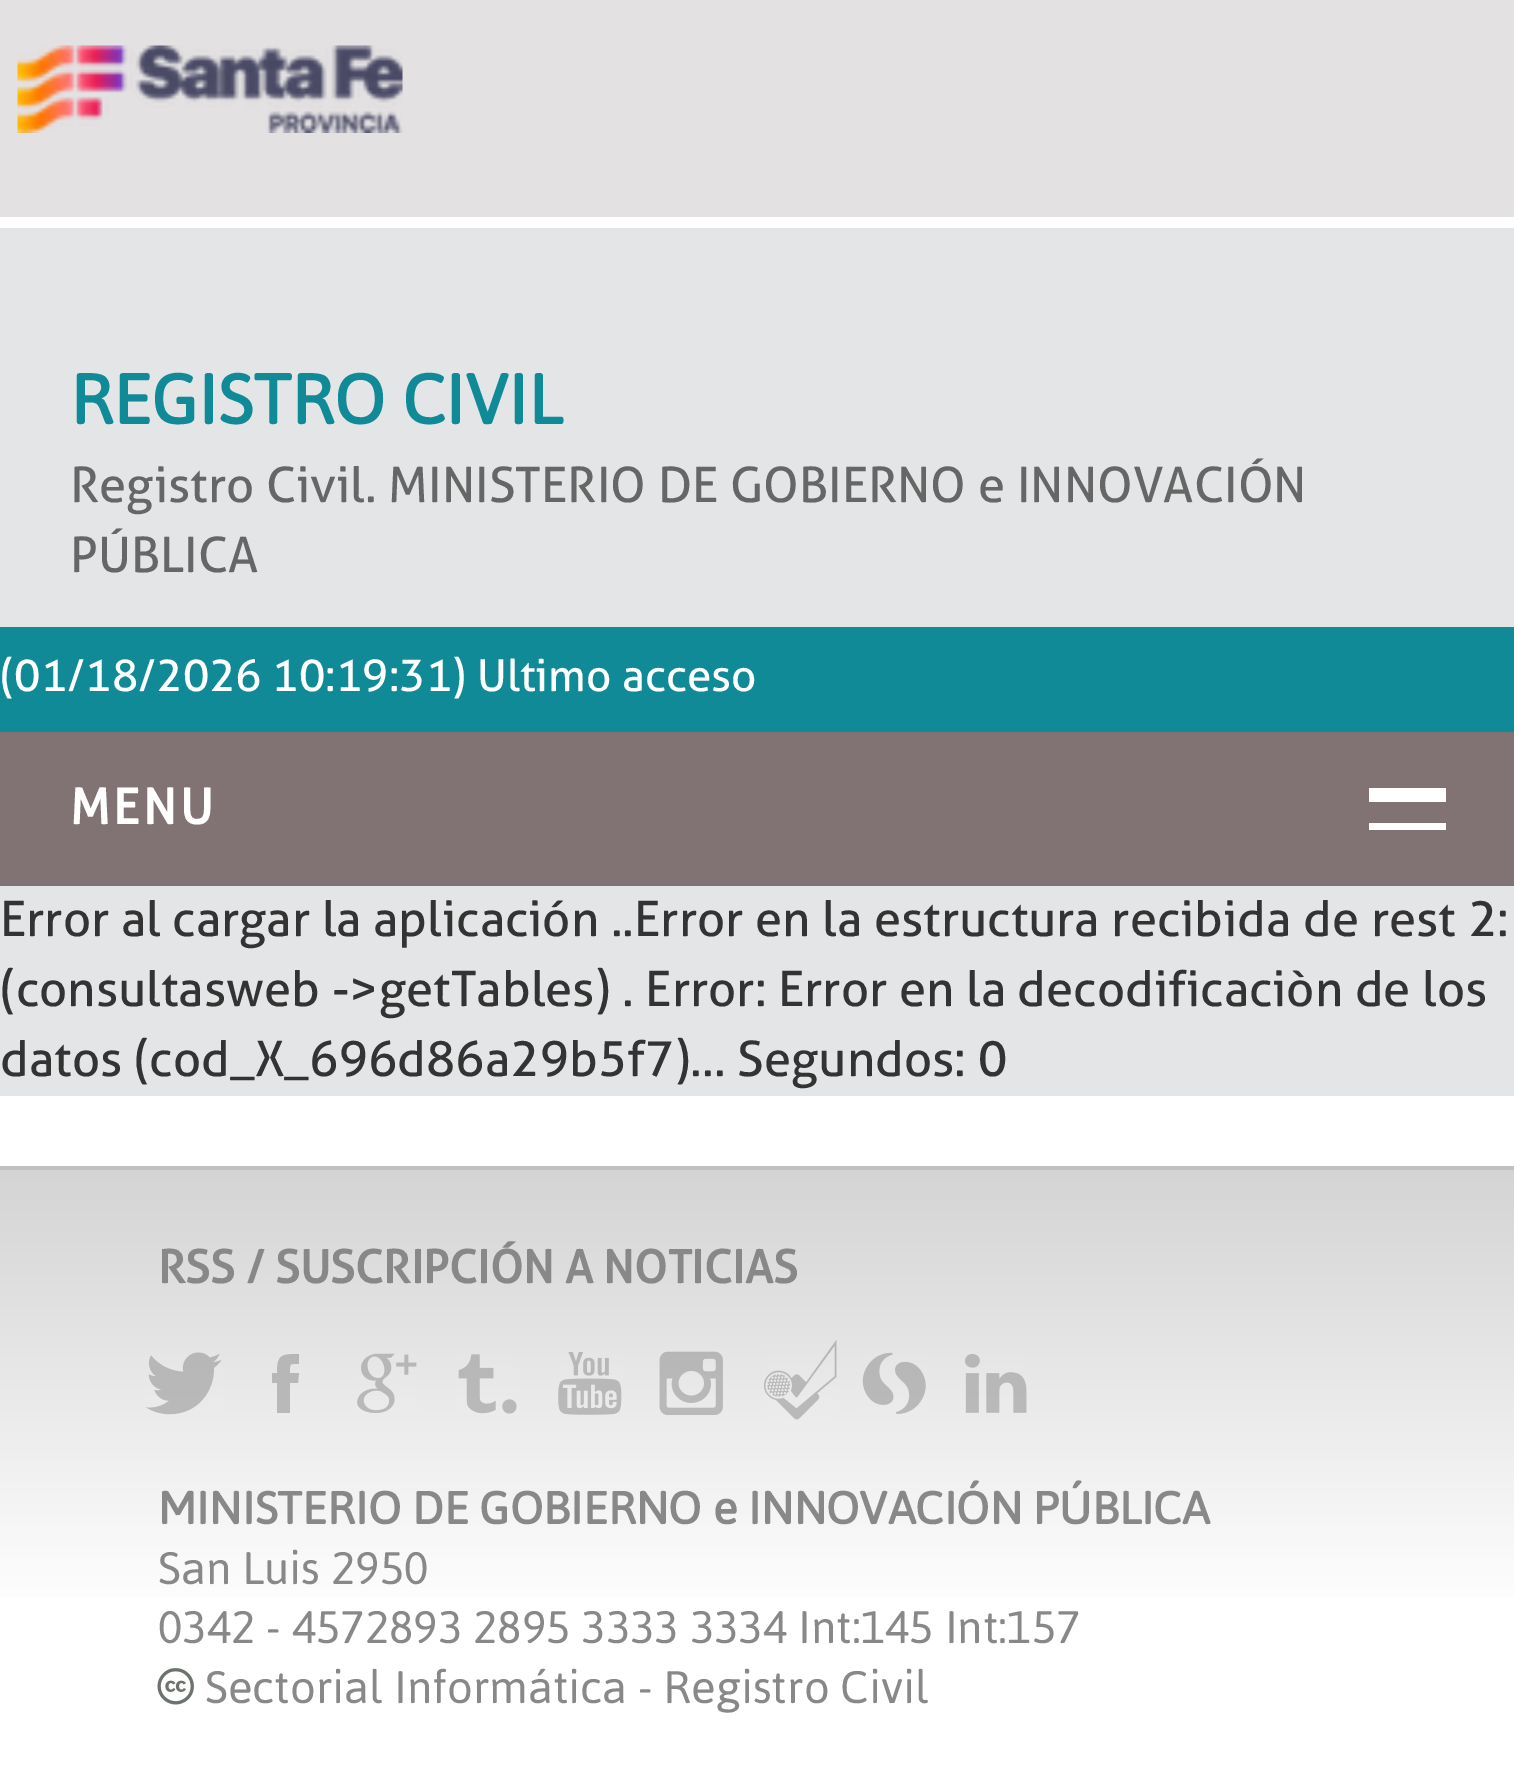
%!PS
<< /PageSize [1514 1767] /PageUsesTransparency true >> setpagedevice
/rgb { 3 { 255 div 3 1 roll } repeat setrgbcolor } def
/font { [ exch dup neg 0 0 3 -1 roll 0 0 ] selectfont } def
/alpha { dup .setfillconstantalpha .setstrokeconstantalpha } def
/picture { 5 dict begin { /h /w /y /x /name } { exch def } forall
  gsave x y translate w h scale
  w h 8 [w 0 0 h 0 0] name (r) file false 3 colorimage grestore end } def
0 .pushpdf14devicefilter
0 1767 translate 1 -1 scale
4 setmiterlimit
255 255 255 rgb
0 0 1514 1767 rectfill
227 225 226 rgb
0 0 1514 217 rectfill
(img/1.rgb) 17 45 386 88 picture
[
  [0 228 1514 868 228 229 230]
  [0 627 1514 105 16 138 151]
  [0 732 1514 154 129 115 115]
  [1369 788 77 14 255 255 255]
  [1369 823 77 7 255 255 255]
] { aload pop rgb rectfill } forall
gsave 0 1170 moveto 1514 1170 lineto 1514 1598 lineto 0 1598 lineto closepath clip newpath
<< /ShadingType 2 /ColorSpace /DeviceRGB /Coords [758 1169 758 1624] /Extend [true true] /Function << /FunctionType 2 /Domain [0 1] /C0 [0.831 0.831 0.831] /C1 [1 1 1] /N 1 >> >> shfill grestore
192 192 192 rgb
0 1166 1514 4 rectfill
(img/2.rgb) 146 1352 76 63 picture
0.5 alpha
136 136 136 rgb
299 1373 moveto 290 1373 lineto 290 1363 289 1364 299 1364 curveto 299 1354 lineto 281 1354 277 1355 277 1373 curveto 272 1373 lineto 272 1383 lineto 277 1383 lineto 277 1413 lineto 290 1413 lineto 290 1383 lineto 298 1383 lineto closepath fill
1 alpha
(img/3.rgb) 357 1353 60 60 picture
(img/4.rgb) 458 1354 59 60 picture
(img/5.rgb) 558 1352 64 63 picture
(img/6.rgb) 659 1351 64 64 picture
(img/7.rgb) 764 1340 73 80 picture
(img/8.rgb) 862 1352 64 62 picture
(img/9.rgb) 965 1354 62 59 picture
(img/10.rgb) 157 1668 37 37 picture
/Asap-Bold 70 font
16 138 151 rgb
70 424 moveto (REGISTRO CIVIL) show
/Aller-Regular 49 font
102 102 102 rgb
70 502 moveto (Registro Civil. MINISTERIO DE GOBIERNO e INNOVACIÓN) show
70 572 moveto (PÚBLICA) show
/Aller-Regular 44.1 font
255 255 255 rgb
0 691 moveto (\(01/18/2026 10:19:31\) Ultimo acceso) show
/Aller-Bold 49 font
70 824 moveto 3.5 0 (MENU) ashow
/Aller-Regular 49 font
51 51 51 rgb
[
  [(Error al cargar la aplicación ..Error en la estructura recibida de rest 2:) 0 936]
  [(\(consultasweb ->getTables\) . Error: Error en la decodificaciòn de los) 0 1006]
  [(datos \(cod_X_696d86a29b5f7\)... Segundos: 0) 0 1076]
] { aload pop moveto show } forall
/Aller-Bold 45.5 font
136 136 136 rgb
158 1283 moveto (RSS / SUSCRIPCIÓN A NOTICIAS) show
/Asap-Bold 45.5 font
158 1524 moveto (MINISTERIO DE GOBIERNO e INNOVACIÓN PÚBLICA) show
/Asap-Regular 45.5 font
[
  [(San Luis 2950) 158 1584]
  [(0342 - 4572893 2895 3333 3334 Int:145 Int:157) 158 1643]
  [(Sectorial Informática - Registro Civil) 205 1703]
] { aload pop moveto show } forall
.poppdf14devicefilter showpage
